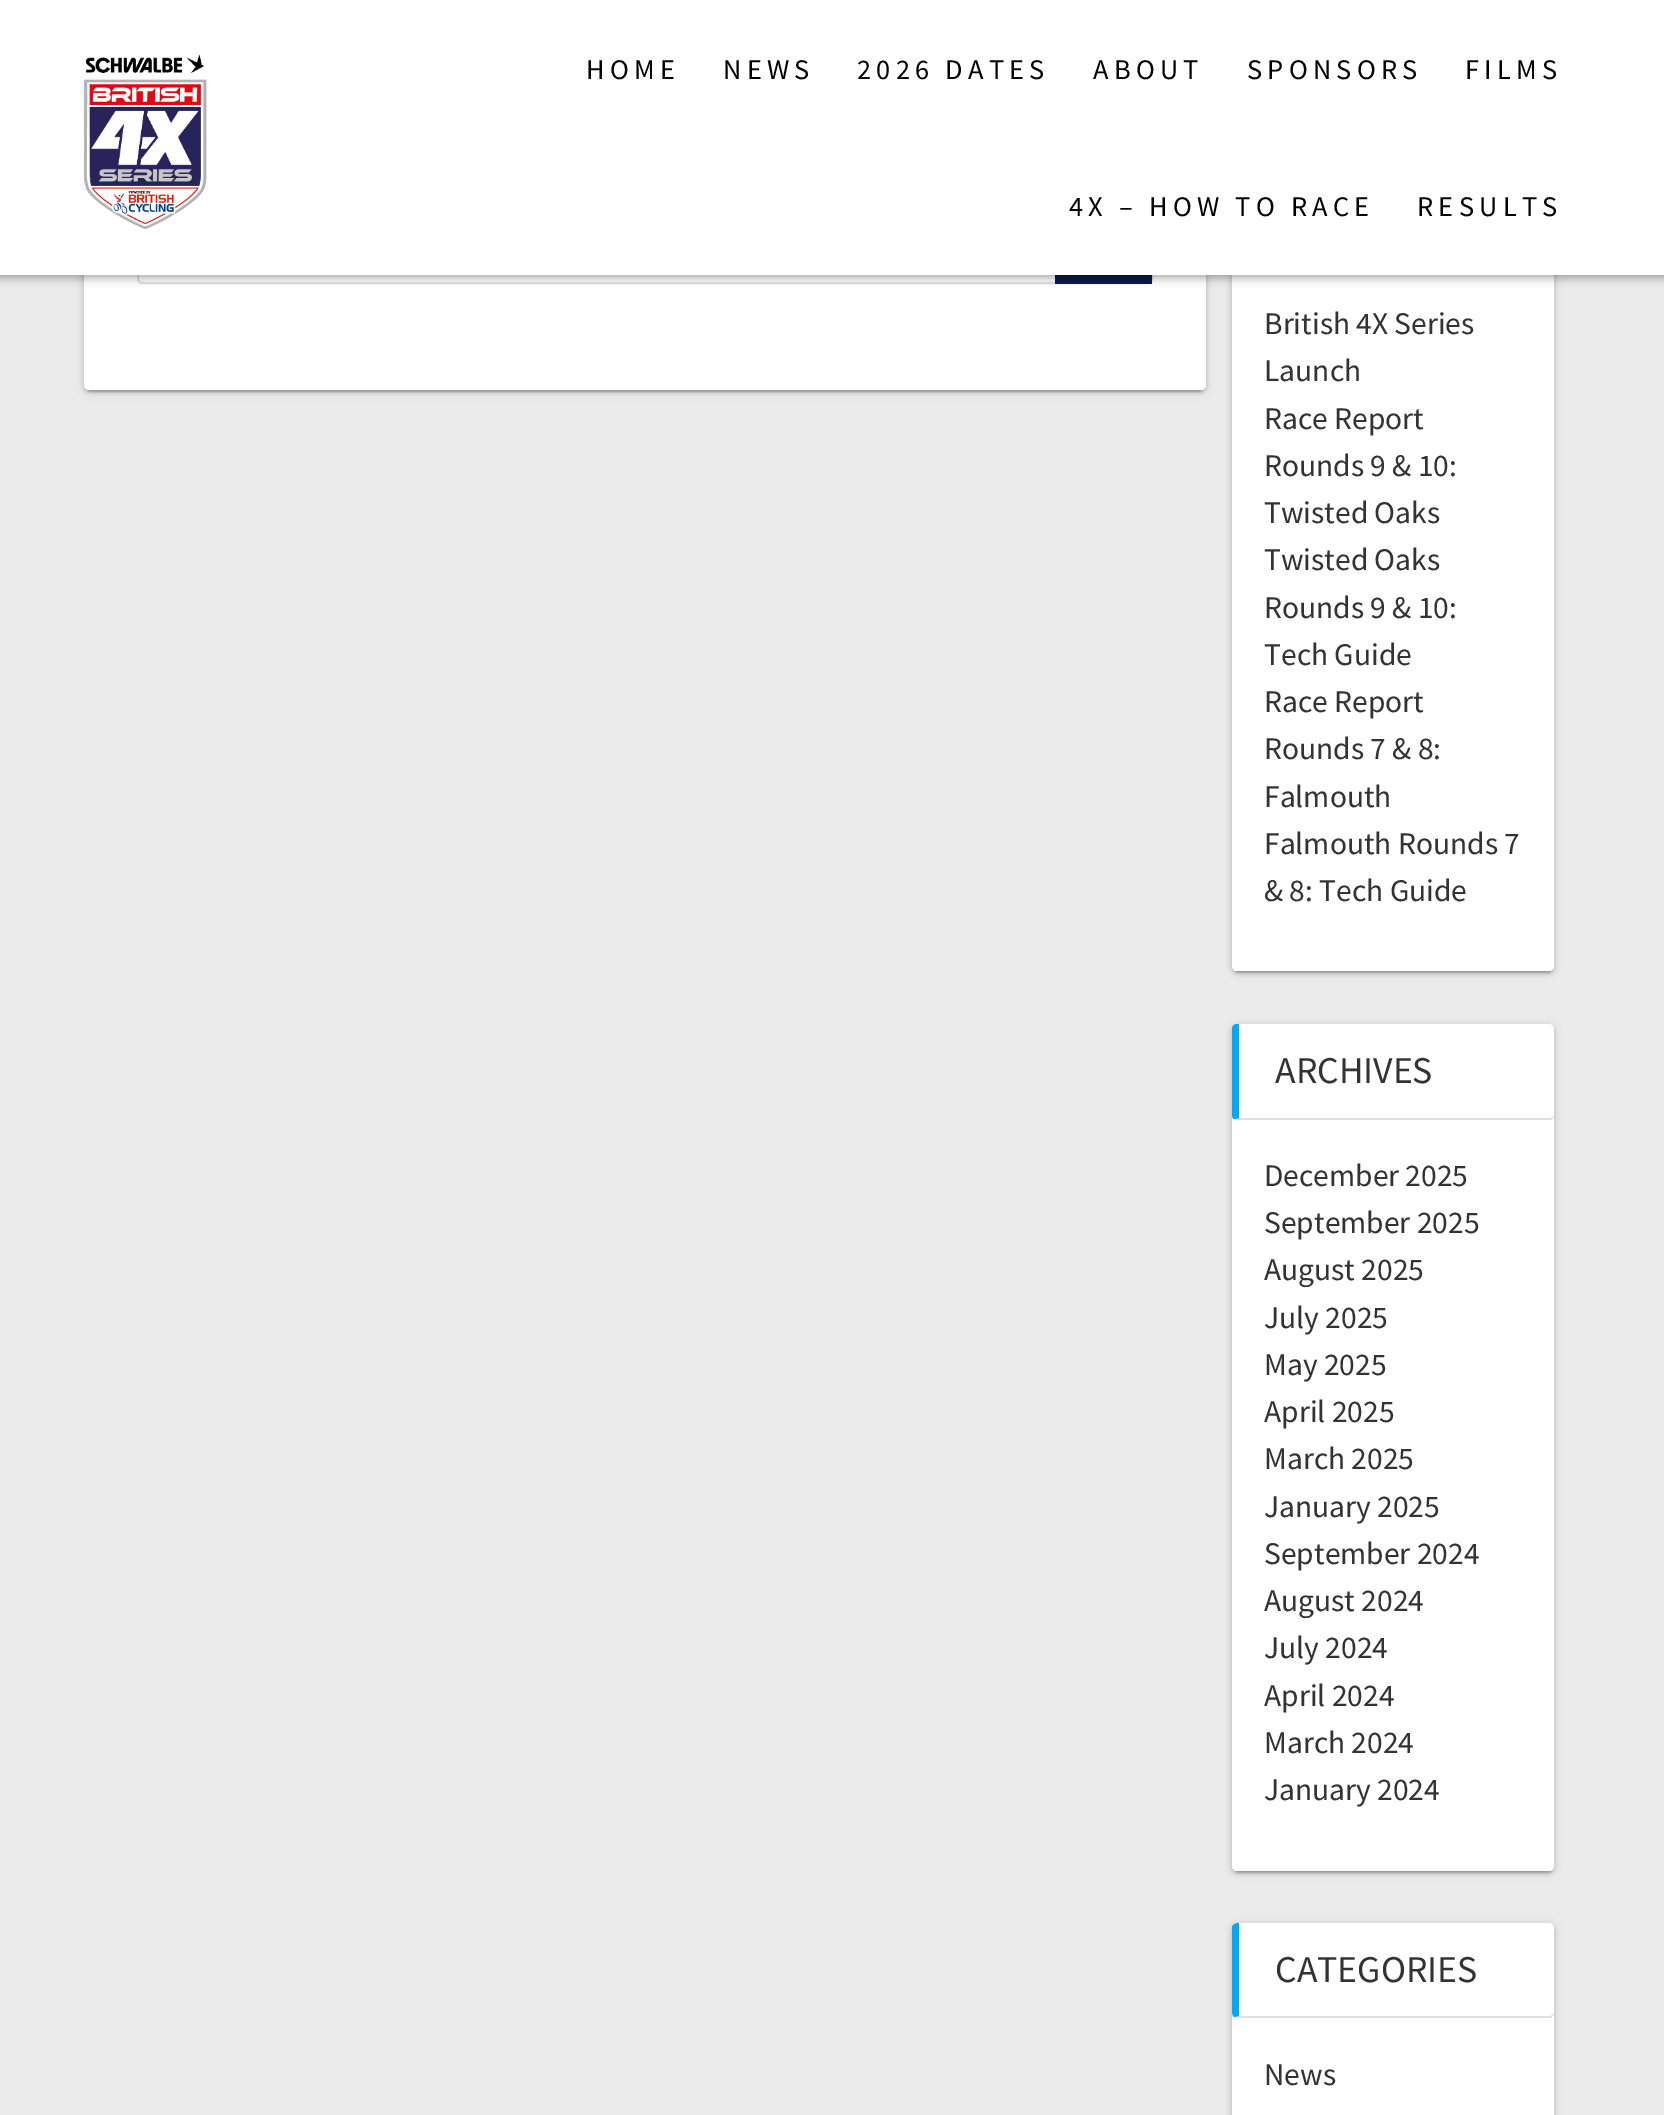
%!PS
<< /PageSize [1664 2115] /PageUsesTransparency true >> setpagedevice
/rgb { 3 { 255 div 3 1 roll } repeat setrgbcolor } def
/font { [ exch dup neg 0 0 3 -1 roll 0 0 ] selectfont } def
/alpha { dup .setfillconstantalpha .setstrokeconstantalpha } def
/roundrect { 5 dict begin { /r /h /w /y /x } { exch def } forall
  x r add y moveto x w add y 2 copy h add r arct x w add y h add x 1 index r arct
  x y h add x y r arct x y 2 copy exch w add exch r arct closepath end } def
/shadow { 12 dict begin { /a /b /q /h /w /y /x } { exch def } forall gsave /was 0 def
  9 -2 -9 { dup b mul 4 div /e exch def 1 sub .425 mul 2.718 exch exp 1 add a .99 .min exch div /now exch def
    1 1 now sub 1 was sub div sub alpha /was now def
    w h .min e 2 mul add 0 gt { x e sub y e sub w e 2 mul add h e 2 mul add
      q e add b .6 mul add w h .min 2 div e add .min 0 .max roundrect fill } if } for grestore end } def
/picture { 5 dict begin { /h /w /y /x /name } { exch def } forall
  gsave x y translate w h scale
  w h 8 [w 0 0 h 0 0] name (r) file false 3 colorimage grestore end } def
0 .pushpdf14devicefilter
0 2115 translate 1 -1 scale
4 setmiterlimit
235 235 235 rgb
0 0 1664 2115 rectfill
0 0 0 rgb
84 -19 1122 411 5 4.5 0.12 shadow
88 -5 1114 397 2 1 0.2 shadow
84 -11 1122 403 5 2 0.14 shadow
255 255 255 rgb
84 -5 1122 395 5 roundrect fill
224 224 224 rgb
2 setlinewidth
138 211 1014 72 4 roundrect stroke
12 24 79 rgb
1055 275 97 9 rectfill
0 0 0 rgb
1232 126 322 847 5 4.5 0.12 shadow
1236 133 315 840 2 1 0.2 shadow
1232 126 322 847 5 2 0.14 shadow
255 255 255 rgb
1232 124 322 847 5 roundrect fill
0 0 0 rgb
-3 -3 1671 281 0 4.5 0.33 shadow
255 255 255 rgb
0 0 1664 275 rectfill
(img/1.rgb) 83 54 124 175 picture
0 0 0 rgb
1232 1026 322 847 5 4.5 0.12 shadow
1236 1033 315 840 2 1 0.2 shadow
1232 1026 322 847 5 2 0.14 shadow
255 255 255 rgb
1232 1024 322 847 5 roundrect fill
224 224 224 rgb
1237 1120 moveto 1549 1120 lineto 1552 1120 1554 1118 1554 1115 curveto 1554 1117 1552 1118 1549 1118 curveto 1240 1118 lineto 1234 1119 lineto closepath fill
3 168 244 rgb
1237 1024 moveto 1239 1024 lineto 1239 1118 lineto 1240 1118 lineto 1234 1119 lineto 1233 1119 1232 1117 1232 1115 curveto 1232 1029 lineto 1232 1026 1234 1024 1237 1024 curveto closepath fill
0 0 0 rgb
1232 1925 322 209 5 4.5 0.12 shadow
1232 1925 322 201 5 2 0.14 shadow
255 255 255 rgb
1232 1923 322 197 5 roundrect fill
224 224 224 rgb
1236 2018 moveto 1234 2017 lineto 1239 2016 lineto 1549 2016 lineto 1552 2016 1554 2014 1554 2012 curveto 1554 2014 1553 2017 1550 2018 curveto closepath fill
3 168 244 rgb
1232 1928 moveto 1232 2012 lineto 1232 2014 1233 2016 1234 2017 curveto 1239 2016 lineto 1239 1923 lineto 1236 1923 1232 1924 1232 1928 curveto closepath fill
/SourceSansPro-Regular 28.4 font
0 0 0 rgb
586 79 moveto 5.25 0 (HOME) ashow
723 79 moveto 5.25 0 (NEWS) ashow
857 79 moveto 5.25 0 (2026 DATES) ashow
1093 79 moveto 5.25 0 (ABOUT) ashow
1247 79 moveto 5.25 0 (SPONSORS) ashow
1465 79 moveto 5.25 0 (FILMS) ashow
1069 216 moveto 5.25 0 (4X – HOW TO RACE) ashow
1417 216 moveto 5.25 0 (RESULTS) ashow
/SourceSansPro-Regular 31.5 font
51 51 51 rgb
[
  [(British 4X Series) 1264 334]
  [(Launch) 1264 381]
  [(Race Report) 1264 429]
  [(Rounds 9 & 10:) 1264 476]
  [(Twisted Oaks) 1264 523]
  [(Twisted Oaks) 1264 570]
  [(Rounds 9 & 10:) 1264 618]
  [(Tech Guide) 1264 665]
  [(Race Report) 1264 712]
  [(Rounds 7 & 8:) 1264 759]
  [(Falmouth) 1264 807]
  [(Falmouth Rounds 7) 1264 854]
  [(& 8: Tech Guide) 1264 901]
] { aload pop moveto show } forall
/SourceSansPro-Regular 37.75 font
1275 1083 moveto (ARCHIVES) show
/SourceSansPro-Regular 31.5 font
[
  [(December 2025) 1264 1186]
  [(September 2025) 1264 1233]
  [(August 2025) 1264 1280]
  [(July 2025) 1264 1328]
  [(May 2025) 1264 1375]
  [(April 2025) 1264 1422]
  [(March 2025) 1264 1469]
  [(January 2025) 1264 1517]
  [(September 2024) 1264 1564]
  [(August 2024) 1264 1611]
  [(July 2024) 1264 1658]
  [(April 2024) 1264 1706]
  [(March 2024) 1264 1753]
  [(January 2024) 1264 1800]
] { aload pop moveto show } forall
/SourceSansPro-Regular 37.75 font
1275 1982 moveto (CATEGORIES) show
/SourceSansPro-Regular 31.5 font
1264 2085 moveto (News) show
.poppdf14devicefilter showpage
